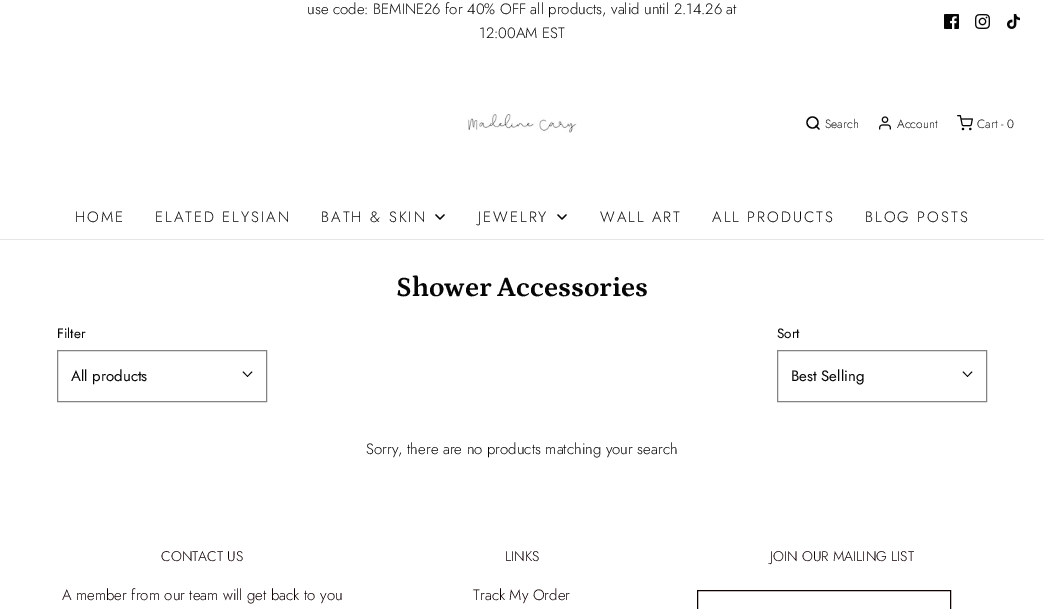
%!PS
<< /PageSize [1044 609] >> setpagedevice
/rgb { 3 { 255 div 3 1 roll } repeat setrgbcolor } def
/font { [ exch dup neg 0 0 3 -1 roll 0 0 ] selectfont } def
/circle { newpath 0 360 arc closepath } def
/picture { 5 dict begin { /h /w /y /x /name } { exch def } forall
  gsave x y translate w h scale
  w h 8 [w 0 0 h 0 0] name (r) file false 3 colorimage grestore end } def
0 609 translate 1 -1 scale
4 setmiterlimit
255 255 255 rgb
0 0 1044 609 rectfill
(img/1.rgb) 944 14 15 15 picture
(img/2.rgb) 975 14 15 15 picture
(img/3.rgb) 1007 14 13 15 picture
230 230 230 rgb
0 239 1044 1 rectfill
(img/4.rgb) 468 114 109 19 picture
7 6 7 rgb
1.3 setlinewidth
812.5 122.5 5.5 circle stroke
1 setlinecap
1 setlinejoin
819 129 moveto 816 126 lineto stroke
(img/5.rgb) 879 116 12 14 picture
(img/6.rgb) 957 115 16 16 picture
436 215 moveto 440 219 lineto 444 215 lineto stroke
558 215 moveto 562 219 lineto 566 215 lineto stroke
131 131 131 rgb
1 setlinewidth
0 setlinecap
0 setlinejoin
57.5 350.5 209 51 rectstroke
7 6 7 rgb
251.5 371.5 moveto 252.5 372 lineto 247.5 377 lineto 247 376.5 lineto closepath fill
243.5 371.5 moveto 248 376.5 lineto 247.5 377 lineto 242.5 372 lineto closepath fill
131 131 131 rgb
777.5 350.5 209 51 rectstroke
7 6 7 rgb
971.5 371.5 moveto 972.5 372 lineto 967.5 377 lineto 967 376.5 lineto closepath fill
963.5 371.5 moveto 968 376.5 lineto 967.5 377 lineto 962.5 372 lineto closepath fill
16 1 1 rgb
697.5 590.5 253 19 rectstroke
/Jost-Light 15 font
7 6 7 rgb
307 14 moveto (use code: BEMINE26 for 40% OFF all products, valid until 2.14.26 at) show
479 38 moveto (12:00AM EST) show
/Jost-Light 12 font
[
  [(Search) 825 128]
  [(Account) 897 128]
  [(Cart - 0) 977 128]
] { aload pop moveto show } forall
/Jost-Light 15 font
75 222 moveto 2 0 (HOME) ashow
155 222 moveto 2 0 (ELATED ELYSIAN) ashow
321 222 moveto 2 0 (BATH & SKIN) ashow
478 222 moveto 2 0 (JEWELRY) ashow
600 222 moveto 2 0 (WALL ART) ashow
712 222 moveto 2 0 (ALL PRODUCTS) ashow
865 222 moveto 2 0 (BLOG POSTS) ashow
/Petrona-Bold 28 font
396 296 moveto (Shower Accessories) show
/Jost-Regular 13.5 font
57 338 moveto (Filter) show
/Jost-Regular 15 font
71 381 moveto (All products) show
/Jost-Regular 13.5 font
777 338 moveto (Sort) show
/Jost-Regular 15 font
791 381 moveto (Best Selling) show
/Jost-Light 15 font
366 454 moveto (Sorry, there are no products matching your search) show
/Jost-Light 14 font
16 1 1 rgb
161 561 moveto (CONTACT US) show
/Jost-Light 15 font
62 600 moveto (A member from our team will get back to you) show
/Jost-Light 14 font
505 561 moveto (LINKS) show
/Jost-Light 15 font
473 600 moveto (Track My Order) show
/Jost-Light 14 font
770 561 moveto (JOIN OUR MAILING LIST) show
showpage
